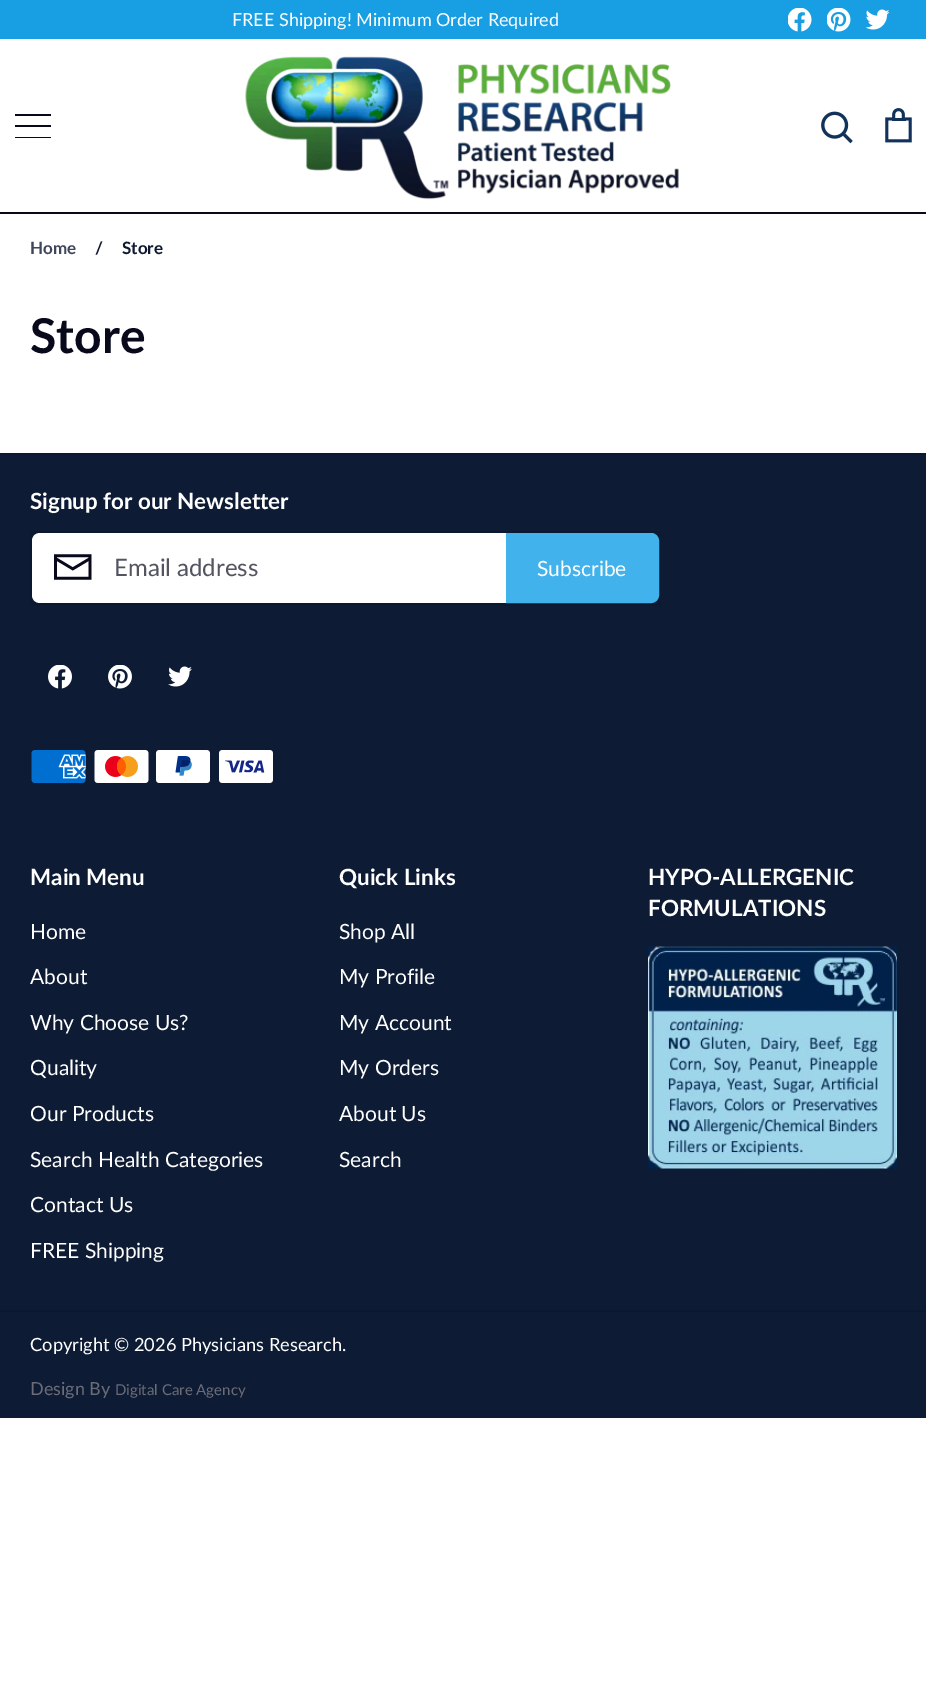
%!PS
<< /PageSize [926 1688] >> setpagedevice
/rgb { 3 { 255 div 3 1 roll } repeat setrgbcolor } def
/font { [ exch dup neg 0 0 3 -1 roll 0 0 ] selectfont } def
/picture { 5 dict begin { /h /w /y /x /name } { exch def } forall
  gsave x y translate w h scale
  w h 8 [w 0 0 h 0 0] name (r) file false 3 colorimage grestore end } def
0 1688 translate 1 -1 scale
4 setmiterlimit
255 255 255 rgb
0 0 926 1688 rectfill
8 10 28 rgb
0 212 926 2 rectfill
23 158 227 rgb
0 0 926 39 rectfill
(img/1.rgb) 788 8 24 24 picture
(img/2.rgb) 827 8 24 24 picture
(img/3.rgb) 866 9 24 21 picture
[
  [15 114 36 2 8 10 28]
  [15 125 36 2 8 10 28]
  [15 137 36 1 8 10 28]
] { aload pop rgb rectfill } forall
(img/4.rgb) 245 56 434 144 picture
(img/5.rgb) 821 111 32 33 picture
(img/6.rgb) 885 108 27 35 picture
[
  [0 455 926 963 13 27 52]
  [0 453 926 2 12 24 48]
  [0 1310 926 2 12 24 48]
] { aload pop rgb rectfill } forall
2 setlinewidth
31 532 628 72 rectstroke
255 255 255 rgb
40 533 moveto 506 533 lineto 506 603 lineto 40 603 lineto 35.5 603 32 599.5 32 595 curveto 32 541 lineto 32 536.5 35.5 533 40 533 curveto closepath fill
(img/7.rgb) 54 554 38 26 picture
65 178 236 rgb
507 534 moveto 651 534 lineto 655 534 658 537 658 541 curveto 658 595 lineto 658 599 655 602 651 602 curveto 507 602 lineto closepath gsave fill grestore
stroke
(img/8.rgb) 48 665 24 24 picture
(img/9.rgb) 108 665 24 24 picture
(img/10.rgb) 168 666 24 21 picture
(img/11.rgb) 31 750 55 33 picture
(img/12.rgb) 94 750 55 33 picture
(img/13.rgb) 156 750 54 33 picture
(img/14.rgb) 219 750 54 33 picture
(img/15.rgb) 648 946 249 223 picture
/Lato-Regular 18 font
255 255 255 rgb
232 26 moveto (FREE Shipping! Minimum Order Required) show
/Lato-Bold 17 font
62 70 90 rgb
30 254 moveto (Home) show
14 24 49 rgb
95 254 moveto (/) show
122 254 moveto (Store) show
/Lato-Bold 48 font
8 10 28 rgb
30 353 moveto (Store) show
/Lato-Bold 22.4 font
255 255 255 rgb
30 509 moveto (Signup for our Newsletter) show
/Lato-Regular 24 font
82 84 96 rgb
114 576 moveto (Email address) show
/Lato-Regular 21 font
255 255 255 rgb
537 576 moveto (Subscribe) show
/Lato-Bold 22.4 font
30 885 moveto (Main Menu) show
/Lato-Regular 21 font
[
  [(Home) 30 939]
  [(About) 30 984]
  [(Why Choose Us?) 30 1030]
  [(Quality) 30 1075]
  [(Our Products) 30 1121]
  [(Search Health Categories) 30 1167]
  [(Contact Us) 30 1212]
  [(FREE Shipping) 30 1258]
] { aload pop moveto show } forall
/Lato-Bold 22.4 font
339 885 moveto (Quick Links) show
/Lato-Regular 21 font
[
  [(Shop All) 339 939]
  [(My Profile) 339 984]
  [(My Account) 339 1030]
  [(My Orders) 339 1075]
  [(About Us) 339 1121]
  [(Search) 339 1167]
] { aload pop moveto show } forall
/Lato-Bold 22.4 font
648 885 moveto (HYPO-ALLERGENIC) show
648 916 moveto (FORMULATIONS) show
/Lato-Regular 18.25 font
30 1351 moveto (Copyright © 2026 Physicians Research.) show
/Lato-Regular 18 font
107 108 119 rgb
30 1395 moveto (Design By) show
/Lato-Regular 15 font
115 1395 moveto (Digital Care Agency) show
showpage
